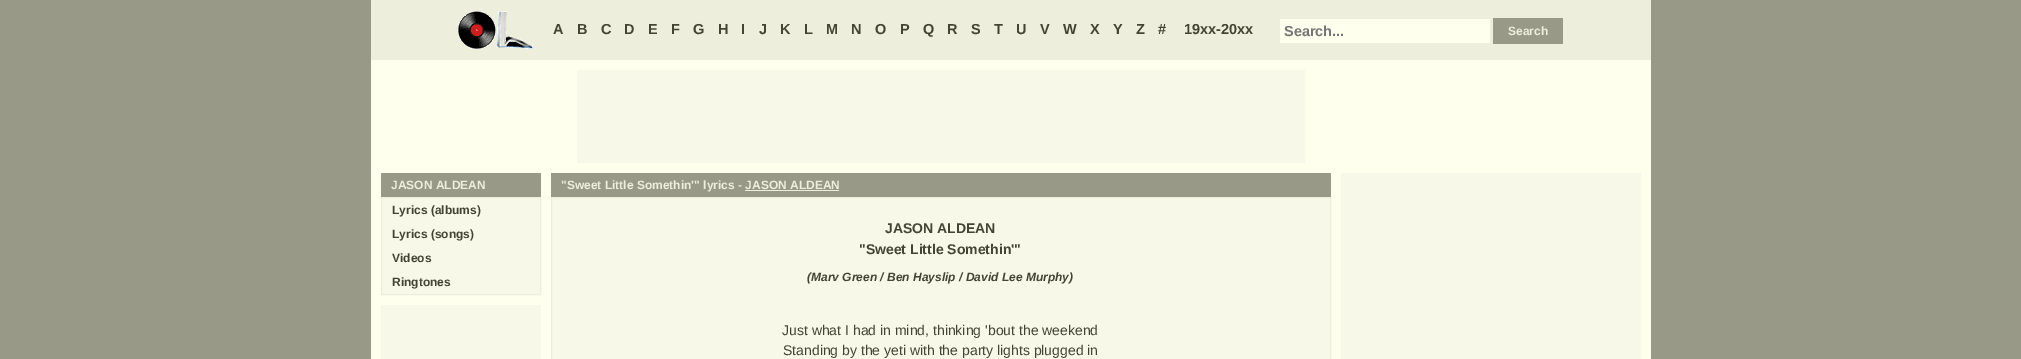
%!PS
<< /PageSize [2021 359] >> setpagedevice
/rgb { 3 { 255 div 3 1 roll } repeat setrgbcolor } def
/font { [ exch dup neg 0 0 3 -1 roll 0 0 ] selectfont } def
/picture { 5 dict begin { /h /w /y /x /name } { exch def } forall
  gsave x y translate w h scale
  w h 8 [w 0 0 h 0 0] name (r) file false 3 colorimage grestore end } def
0 359 translate 1 -1 scale
4 setmiterlimit
153 153 136 rgb
0 0 2021 359 rectfill
255 255 238 rgb
371 60 1280 299 rectfill
238 238 221 rgb
371 0 1280 60 rectfill
(img/1.rgb) 458 11 75 38 picture
[
  [1280 19 210 24 255 255 238]
  [1493 18 70 26 153 153 136]
  [577 70 728 93 248 248 232]
  [381 173 160 24 153 153 136]
] { aload pop rgb rectfill } forall
248 248 232 rgb
381.5 197.5 moveto 540.5 197.5 lineto 540.5 294.5 lineto 381.5 294.5 lineto closepath gsave fill grestore
238 238 221 rgb
stroke
[
  [381 305 160 54 248 248 232]
  [551 173 780 24 153 153 136]
  [745 190 94 1 238 238 221]
] { aload pop rgb rectfill } forall
248 248 232 rgb
551.5 197.5 moveto 1330.5 197.5 lineto 1330.5 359.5 lineto 551.5 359.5 lineto closepath gsave fill grestore
238 238 221 rgb
stroke
248 248 232 rgb
1341 173 300 186 rectfill
/LiberationSans-Bold 14.5 font
68 68 51 rgb
[
  [(A) 553 34]
  [(B) 577 34]
  [(C) 601 34]
  [(D) 624 34]
  [(E) 648 34]
  [(F) 671 34]
  [(G) 693 34]
  [(H) 718 34]
  [(I) 741 34]
  [(J) 759 34]
  [(K) 780 34]
  [(L) 804 34]
  [(M) 826 34]
  [(N) 851 34]
  [(O) 875 34]
  [(P) 900 34]
  [(Q) 923 34]
  [(R) 947 34]
  [(S) 971 34]
  [(T) 994 34]
  [(U) 1016 34]
  [(V) 1040 34]
  [(W) 1063 34]
  [(X) 1090 34]
  [(Y) 1113 34]
  [(Z) 1136 34]
  [(#) 1158 34]
  [(19xx-20xx) 1184 34]
] { aload pop moveto show } forall
117 117 117 rgb
1284 36 moveto (Search...) show
/LiberationSans-Bold 12 font
238 238 221 rgb
1508 35 moveto (Search) show
391 189 moveto (JASON ALDEAN) show
68 68 51 rgb
[
  [(Lyrics \(albums\)) 392 214]
  [(Lyrics \(songs\)) 392 238]
  [(Videos) 392 262]
  [(Ringtones) 392 286]
] { aload pop moveto show } forall
238 238 221 rgb
561 189 moveto ("Sweet Little Somethin'" lyrics - JASON ALDEAN) show
/LiberationSans-Bold 14 font
68 68 51 rgb
885 233 moveto (JASON ALDEAN) show
859 254 moveto ("Sweet Little Somethin'") show
/LiberationSans-BoldItalic 12 font
807 281 moveto (\(Marv Green / Ben Hayslip / David Lee Murphy\)) show
/LiberationSans-Regular 14 font
782 335 moveto (Just what I had in mind, thinking 'bout the weekend) show
783 355 moveto (Standing by the yeti with the party lights plugged in) show
showpage
